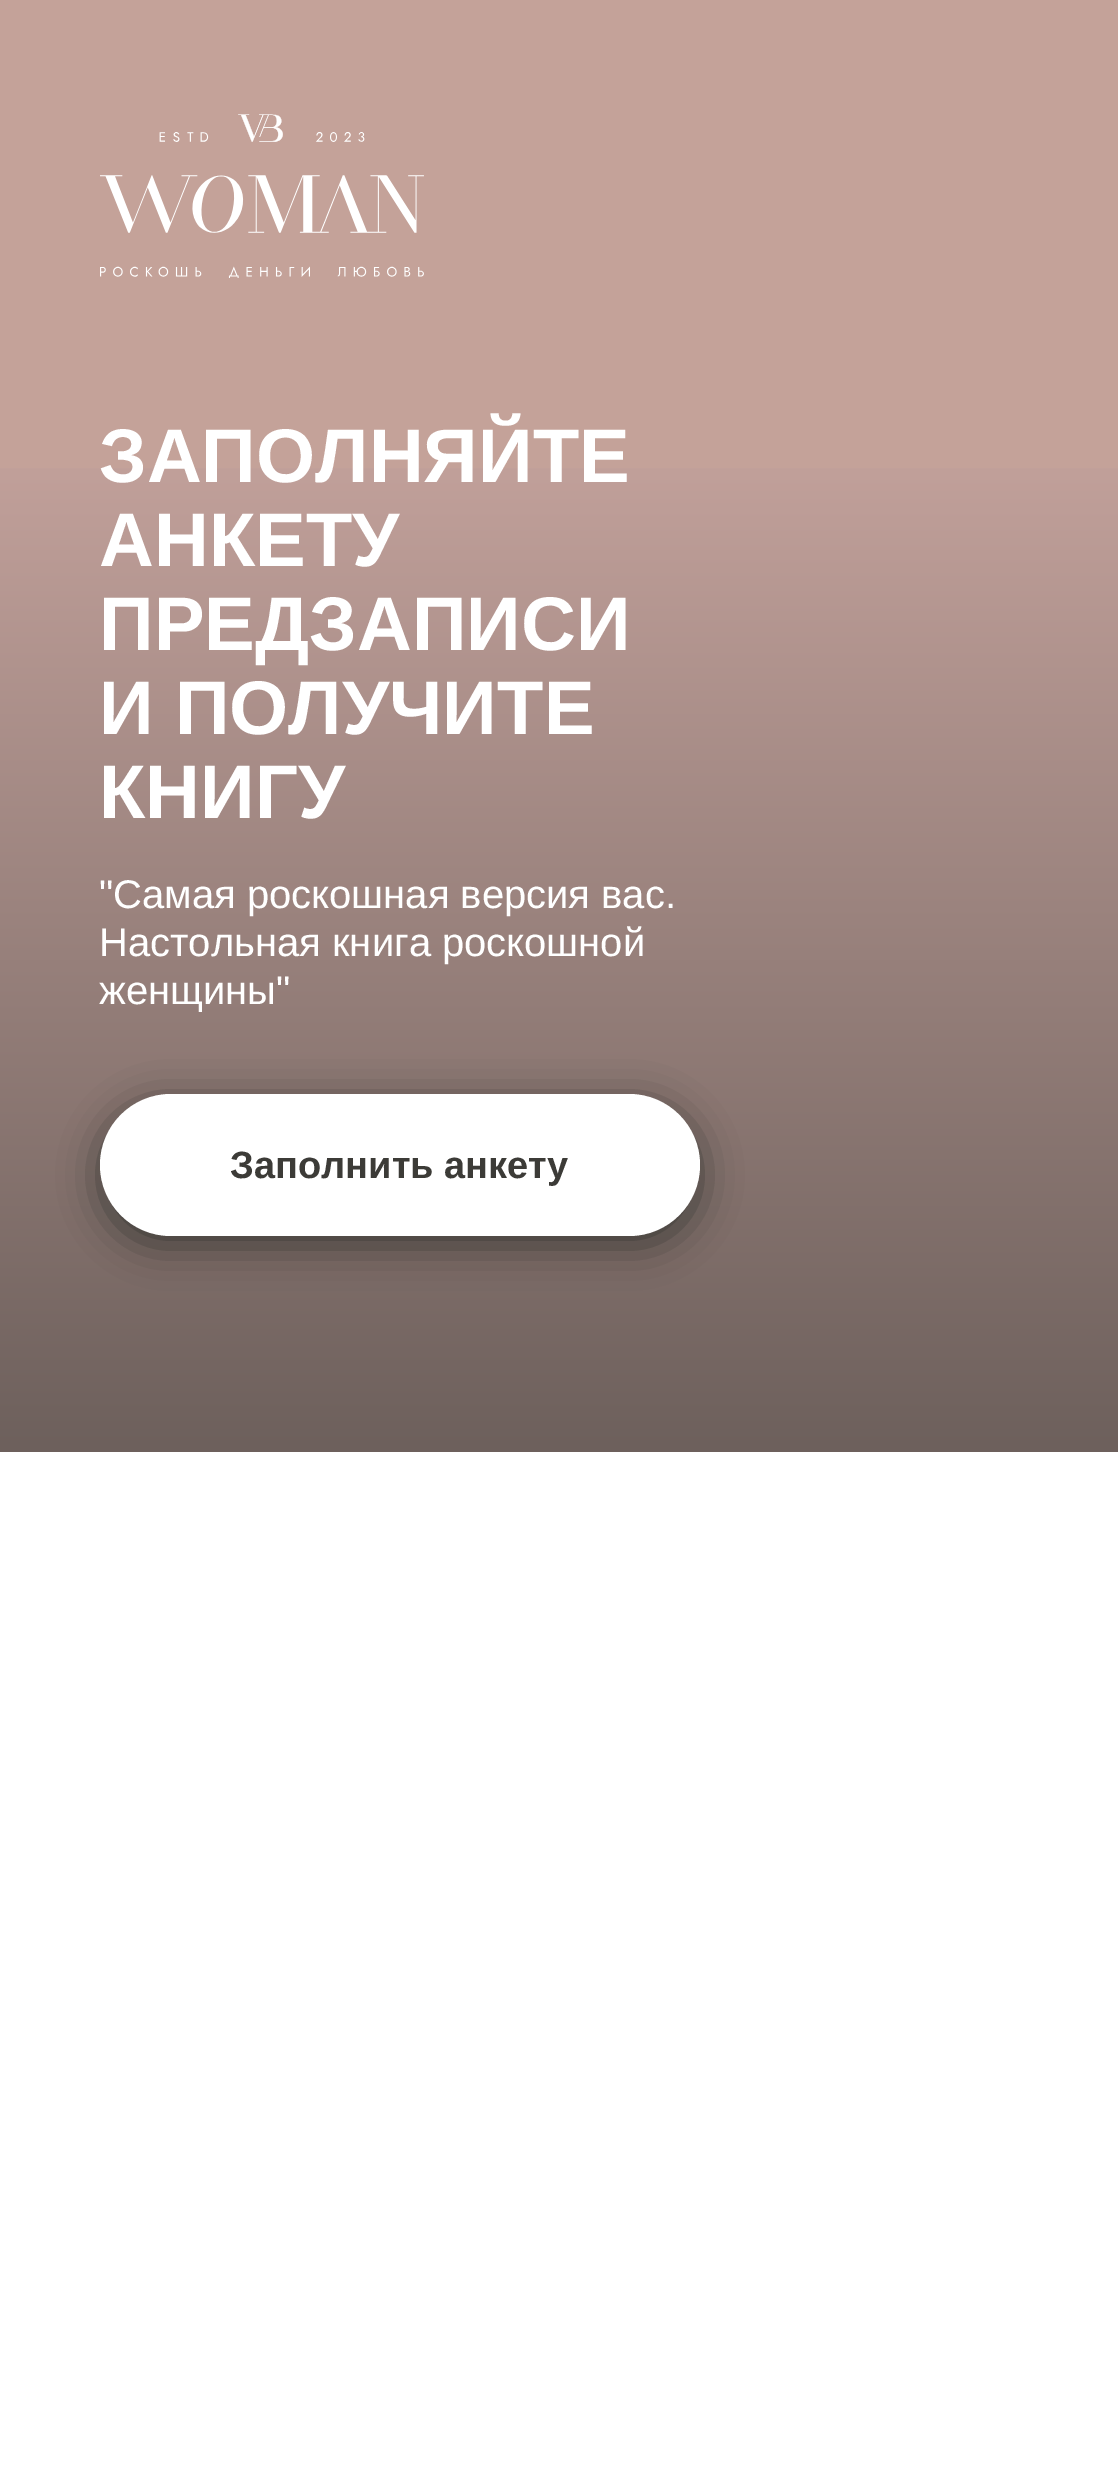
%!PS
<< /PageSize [1118 2491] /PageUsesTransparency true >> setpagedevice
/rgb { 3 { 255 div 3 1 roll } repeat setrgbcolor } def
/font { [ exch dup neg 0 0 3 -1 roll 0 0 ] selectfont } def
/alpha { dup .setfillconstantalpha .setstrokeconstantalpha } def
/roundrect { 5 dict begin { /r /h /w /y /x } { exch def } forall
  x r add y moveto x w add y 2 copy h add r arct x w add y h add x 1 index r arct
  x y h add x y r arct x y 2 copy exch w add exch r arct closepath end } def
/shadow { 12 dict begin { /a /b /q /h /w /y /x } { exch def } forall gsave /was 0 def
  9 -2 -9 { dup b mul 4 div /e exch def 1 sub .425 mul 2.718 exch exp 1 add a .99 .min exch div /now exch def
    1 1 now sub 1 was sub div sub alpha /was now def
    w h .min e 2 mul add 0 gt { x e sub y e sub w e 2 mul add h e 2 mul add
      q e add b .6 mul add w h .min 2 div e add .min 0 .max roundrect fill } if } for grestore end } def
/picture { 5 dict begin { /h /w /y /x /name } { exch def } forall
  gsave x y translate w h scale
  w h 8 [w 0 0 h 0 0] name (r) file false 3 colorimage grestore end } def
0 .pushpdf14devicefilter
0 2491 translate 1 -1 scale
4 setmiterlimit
255 255 255 rgb
0 0 1118 2491 rectfill
196 162 153 rgb
0 0 1118 468 rectfill
(img/1.rgb) 100 114 324 164 picture
gsave 0 468 moveto 1118 468 lineto 1118 1452 lineto 0 1452 lineto closepath clip newpath
<< /ShadingType 2 /ColorSpace /DeviceRGB /Coords [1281 1480 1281 468] /Extend [true true] /Function << /FunctionType 2 /Domain [0 1] /C0 [0.42 0.369 0.353] /C1 [0.757 0.627 0.604] /N 1 >> >> shfill grestore
60 59 55 rgb
100 1104 600 142 71 20 1 shadow
255 255 255 rgb
100 1094 600 142 71 roundrect fill
/LiberationSans-Bold 76 font
[
  [(ЗАПОЛНЯЙТЕ) 99 482]
  [(АНКЕТУ) 99 566]
  [(ПРЕДЗАПИСИ) 99 650]
  [(И ПОЛУЧИТЕ) 99 734]
  [(КНИГУ) 99 818]
] { aload pop moveto show } forall
/LiberationSans-Regular 40 font
[
  [("Самая роскошная версия вас.) 99 908]
  [(Настольная книга роскошной) 99 956]
  [(женщины") 99 1004]
] { aload pop moveto show } forall
/LiberationSans-Bold 38 font
60 59 55 rgb
230 1178 moveto (Заполнить анкету) show
.poppdf14devicefilter showpage
